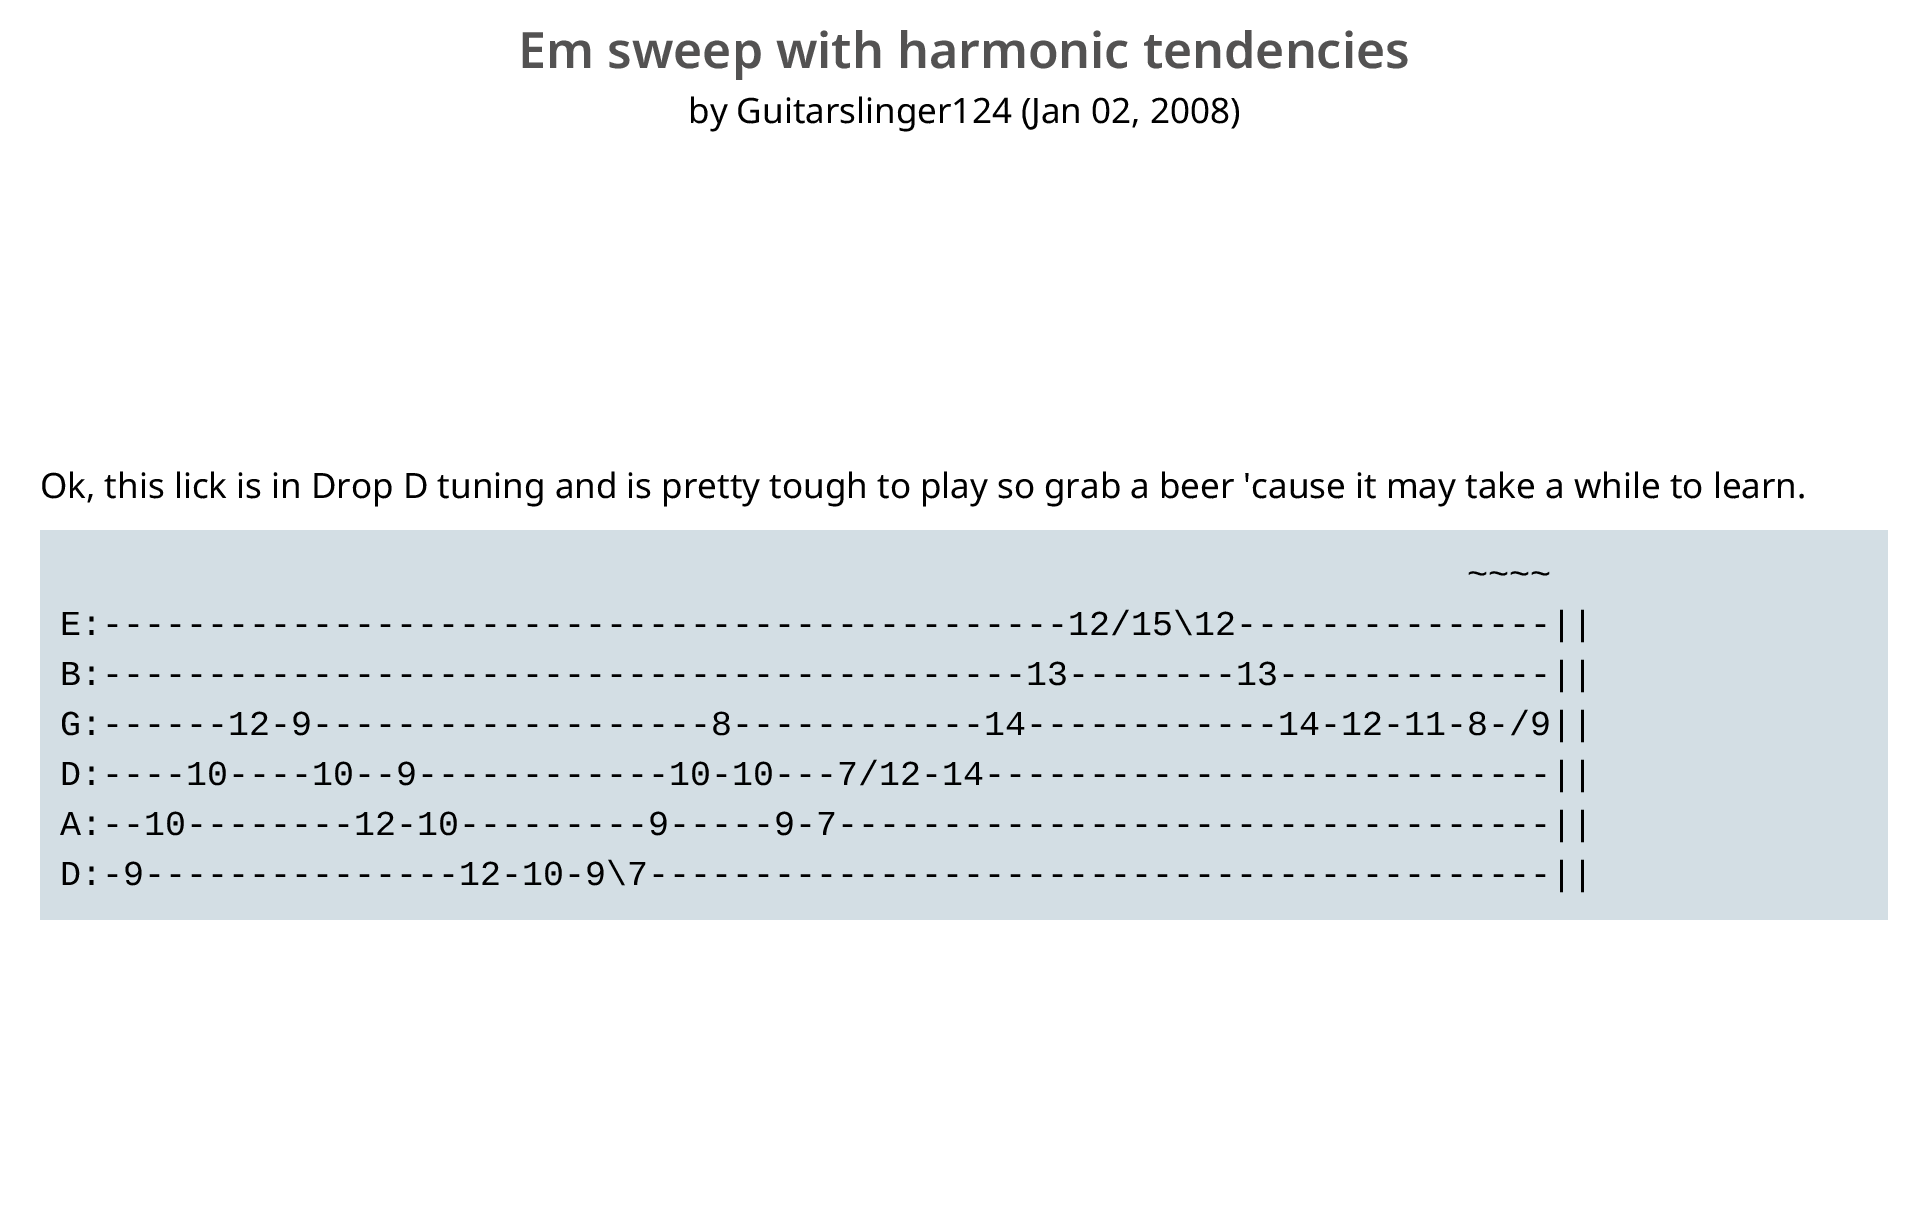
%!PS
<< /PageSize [1926 1217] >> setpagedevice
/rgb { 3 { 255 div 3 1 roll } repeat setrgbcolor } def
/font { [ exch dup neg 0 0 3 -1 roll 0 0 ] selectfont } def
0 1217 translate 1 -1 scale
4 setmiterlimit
255 255 255 rgb
0 0 1926 1217 rectfill
211 222 228 rgb
40 530 1848 390 rectfill
/NotoSans-SemiBold 50 font
83 82 82 rgb
518 68 moveto (Em sweep with harmonic tendencies) show
/NotoSans-Regular 35 font
0 0 0 rgb
688 123 moveto (by Guitarslinger124 \(Jan 02, 2008\)) show
40 498 moveto (Ok, this lick is in Drop D tuning and is pretty tough to play so grab a beer 'cause it may take a while to learn.) show
/LiberationMono-Regular 35 font
[
  [(~~~~) 1467 585]
  [(E:----------------------------------------------12/15\\12---------------||) 60 635]
  [(B:--------------------------------------------13--------13-------------||) 60 685]
  [(G:------12-9-------------------8------------14------------14-12-11-8-/9||) 60 735]
  [(D:----10----10--9------------10-10---7/12-14---------------------------||) 60 785]
  [(A:--10--------12-10---------9-----9-7----------------------------------||) 60 835]
  [(D:-9---------------12-10-9\\7-------------------------------------------||) 60 885]
] { aload pop moveto show } forall
showpage
